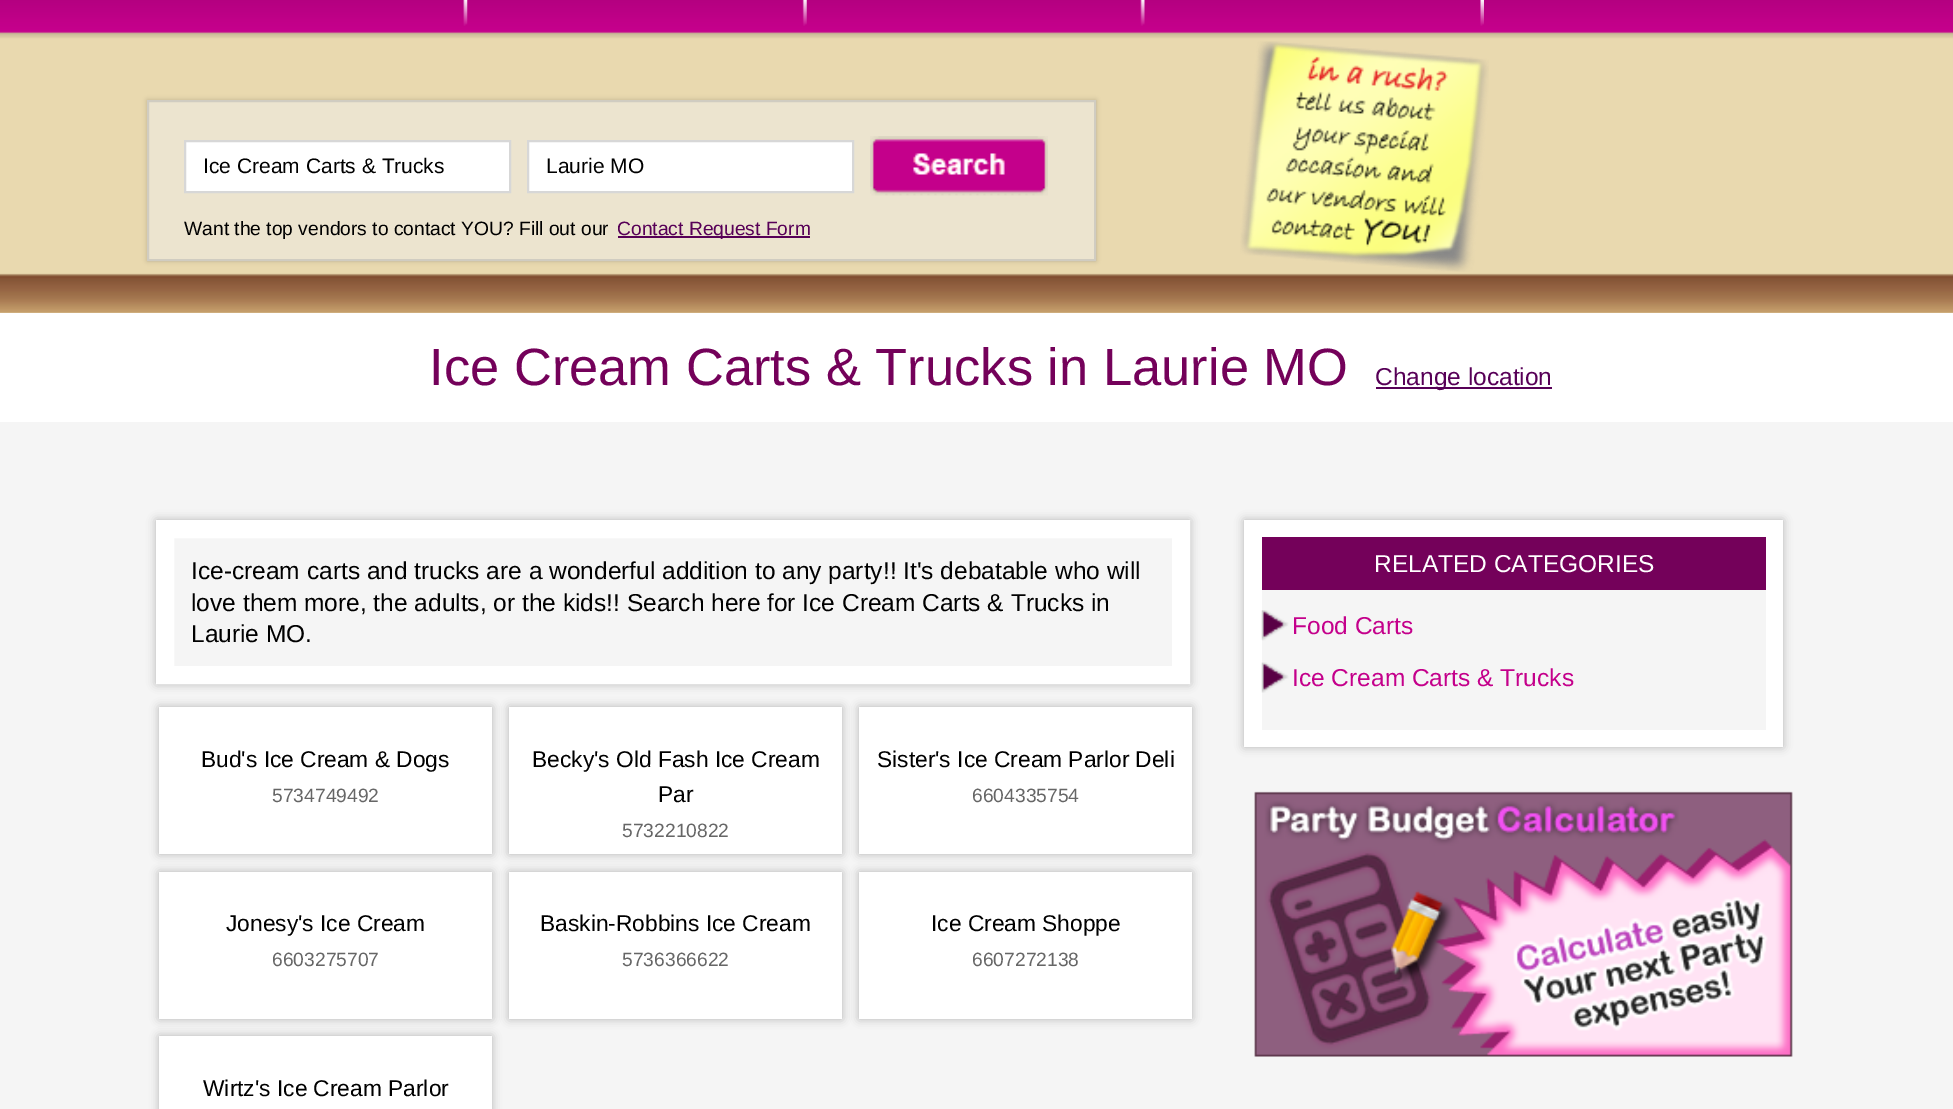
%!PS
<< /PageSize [1953 1109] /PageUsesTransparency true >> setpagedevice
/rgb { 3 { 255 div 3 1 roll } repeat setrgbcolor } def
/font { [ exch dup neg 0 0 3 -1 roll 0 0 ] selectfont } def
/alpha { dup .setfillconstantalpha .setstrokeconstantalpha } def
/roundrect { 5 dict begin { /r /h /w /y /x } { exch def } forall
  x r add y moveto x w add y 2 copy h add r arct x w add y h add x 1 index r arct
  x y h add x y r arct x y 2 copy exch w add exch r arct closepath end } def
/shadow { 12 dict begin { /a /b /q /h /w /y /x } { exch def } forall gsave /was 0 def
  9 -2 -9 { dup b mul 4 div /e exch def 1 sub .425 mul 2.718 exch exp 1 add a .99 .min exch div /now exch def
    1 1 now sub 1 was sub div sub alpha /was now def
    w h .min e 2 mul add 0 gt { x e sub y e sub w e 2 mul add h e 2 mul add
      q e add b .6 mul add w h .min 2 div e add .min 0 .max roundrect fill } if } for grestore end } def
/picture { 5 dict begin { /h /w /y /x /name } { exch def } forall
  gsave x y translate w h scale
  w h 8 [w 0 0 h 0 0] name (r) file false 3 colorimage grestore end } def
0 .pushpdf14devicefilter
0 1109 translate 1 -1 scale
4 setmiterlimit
233 217 175 rgb
0 0 1953 1109 rectfill
(img/1.rgb) 0 0 1953 313 picture
(img/2.rgb) 463 0 5 26 picture
(img/3.rgb) 802 0 5 26 picture
(img/4.rgb) 1140 0 5 26 picture
(img/5.rgb) 1480 0 4 26 picture
gsave
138 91 moveto 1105 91 lineto 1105 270 lineto 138 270 lineto closepath 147 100 moveto 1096 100 lineto 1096 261 lineto 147 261 lineto closepath eoclip newpath
0 0 0 rgb
147 100 949 161 0 2.5 0.17 shadow
grestore
0.5 alpha
239 239 239 rgb
147 100 949 161 rectfill
181 180 180 rgb
2 setlinewidth
148 101 947 159 rectstroke
1 alpha
255 255 255 rgb
185 141 moveto 510 141 lineto 510 192 lineto 185 192 lineto closepath gsave fill grestore
215 215 215 rgb
stroke
255 255 255 rgb
528 141 moveto 853 141 lineto 853 192 lineto 528 192 lineto closepath gsave fill grestore
215 215 215 rgb
stroke
(img/6.rgb) 870 136 178 60 picture
(img/7.rgb) 1240 41 249 231 picture
[
  [618 236 192 2 87 0 87]
  [0 422 1953 687 245 245 245]
  [0 313 1953 109 255 255 255]
  [1376 387 176 2 87 0 87]
] { aload pop rgb rectfill } forall
gsave
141 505 moveto 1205 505 lineto 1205 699 lineto 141 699 lineto closepath 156 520 moveto 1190 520 lineto 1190 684 lineto 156 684 lineto closepath eoclip newpath
0 0 0 rgb
156 520 1034 164 0 4.5 0.25 shadow
grestore
255 255 255 rgb
18 setlinewidth
165 529 1016 146 rectstroke
0 0 0 rgb
159 707 333 147 0 4.5 0.25 shadow
255 255 255 rgb
159 707 333 147 rectfill
0 0 0 rgb
509 707 333 147 0 4.5 0.25 shadow
255 255 255 rgb
509 707 333 147 rectfill
0 0 0 rgb
859 707 333 147 0 4.5 0.25 shadow
255 255 255 rgb
859 707 333 147 rectfill
0 0 0 rgb
159 872 333 147 0 4.5 0.25 shadow
255 255 255 rgb
159 872 333 147 rectfill
0 0 0 rgb
509 872 333 147 0 4.5 0.25 shadow
255 255 255 rgb
509 872 333 147 rectfill
0 0 0 rgb
859 872 333 147 0 4.5 0.25 shadow
255 255 255 rgb
859 872 333 147 rectfill
0 0 0 rgb
159 1036 333 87 0 4.5 0.25 shadow
255 255 255 rgb
159 1036 333 73 rectfill
0 0 0 rgb
1244 520 539 227 0 4.5 0.25 shadow
[
  [1244 520 539 227 255 255 255]
  [1262 537 504 53 116 1 90]
  [1262 590 504 140 245 245 245]
] { aload pop rgb rectfill } forall
(img/8.rgb) 1261 610 28 31 picture
(img/9.rgb) 1261 662 28 31 picture
(img/10.rgb) 1254 791 539 266 picture
/LiberationSans-Regular 21 font
0 0 0 rgb
203 173 moveto (Ice Cream Carts & Trucks) show
546 173 moveto (Laurie MO) show
/LiberationSans-Regular 19.25 font
184 235 moveto (Want the top vendors to contact YOU? Fill out our) show
87 0 87 rgb
617 235 moveto (Contact Request Form) show
/LiberationSans-Regular 52.5 font
116 1 90 rgb
429 385 moveto (Ice Cream Carts & Trucks in Laurie MO) show
/LiberationSans-Regular 24.5 font
87 0 87 rgb
1375 385 moveto (Change location) show
0 0 0 rgb
[
  [(Ice-cream carts and trucks are a wonderful addition to any party!! It's debatable who will) 191 579]
  [(love them more, the adults, or the kids!! Search here for Ice Cream Carts & Trucks in) 191 611]
  [(Laurie MO.) 191 642]
] { aload pop moveto show } forall
/LiberationSans-Regular 22.75 font
201 767 moveto (Bud's Ice Cream & Dogs) show
/LiberationSans-Regular 19.25 font
102 102 102 rgb
272 802 moveto (5734749492) show
/LiberationSans-Regular 22.75 font
0 0 0 rgb
532 767 moveto (Becky's Old Fash Ice Cream) show
658 802 moveto (Par) show
/LiberationSans-Regular 19.25 font
102 102 102 rgb
622 837 moveto (5732210822) show
/LiberationSans-Regular 22.75 font
0 0 0 rgb
877 767 moveto (Sister's Ice Cream Parlor Deli) show
/LiberationSans-Regular 19.25 font
102 102 102 rgb
972 802 moveto (6604335754) show
/LiberationSans-Regular 22.75 font
0 0 0 rgb
226 931 moveto (Jonesy's Ice Cream) show
/LiberationSans-Regular 19.25 font
102 102 102 rgb
272 966 moveto (6603275707) show
/LiberationSans-Regular 22.75 font
0 0 0 rgb
540 931 moveto (Baskin-Robbins Ice Cream) show
/LiberationSans-Regular 19.25 font
102 102 102 rgb
622 966 moveto (5736366622) show
/LiberationSans-Regular 22.75 font
0 0 0 rgb
931 931 moveto (Ice Cream Shoppe) show
/LiberationSans-Regular 19.25 font
102 102 102 rgb
972 966 moveto (6607272138) show
/LiberationSans-Regular 22.75 font
0 0 0 rgb
203 1096 moveto (Wirtz's Ice Cream Parlor) show
/LiberationSans-Regular 24.5 font
255 255 255 rgb
1374 572 moveto (RELATED CATEGORIES) show
196 0 139 rgb
1292 634 moveto (Food Carts) show
1292 686 moveto (Ice Cream Carts & Trucks) show
.poppdf14devicefilter showpage
